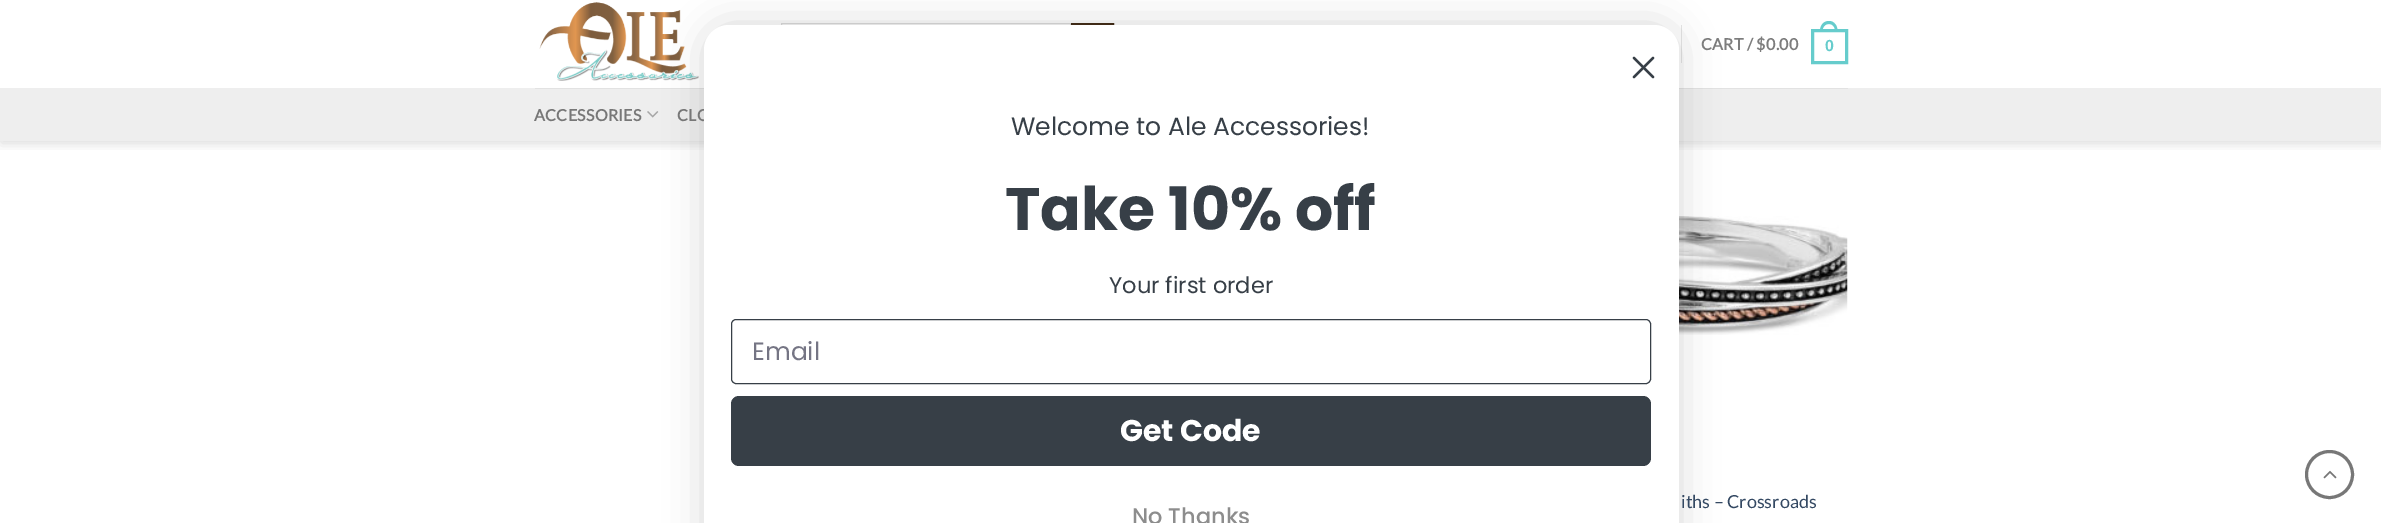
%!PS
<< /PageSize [2381 523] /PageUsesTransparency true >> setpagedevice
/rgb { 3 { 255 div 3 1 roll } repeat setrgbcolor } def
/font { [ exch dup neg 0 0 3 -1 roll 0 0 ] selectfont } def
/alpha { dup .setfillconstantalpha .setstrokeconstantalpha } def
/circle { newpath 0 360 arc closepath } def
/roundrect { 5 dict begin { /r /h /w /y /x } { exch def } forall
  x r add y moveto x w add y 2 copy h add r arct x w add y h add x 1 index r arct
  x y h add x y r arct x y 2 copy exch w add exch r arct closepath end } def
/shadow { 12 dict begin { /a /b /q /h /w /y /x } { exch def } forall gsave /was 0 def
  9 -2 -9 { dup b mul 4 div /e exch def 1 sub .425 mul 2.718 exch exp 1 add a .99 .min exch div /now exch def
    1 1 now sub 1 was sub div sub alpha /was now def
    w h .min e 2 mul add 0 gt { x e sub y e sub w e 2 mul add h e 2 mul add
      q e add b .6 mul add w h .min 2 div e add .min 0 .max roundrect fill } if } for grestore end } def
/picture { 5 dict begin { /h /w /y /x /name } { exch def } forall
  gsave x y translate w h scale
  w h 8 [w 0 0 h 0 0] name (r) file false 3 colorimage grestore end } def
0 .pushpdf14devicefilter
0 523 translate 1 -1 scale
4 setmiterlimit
255 255 255 rgb
0 0 2381 523 rectfill
gsave
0 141 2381 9 rectclip
0 0 0 rgb
1 1 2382 142 0 6 0.15 shadow
grestore
(img/1.rgb) 539 2 160 79 picture
221 221 221 rgb
781.5 23.5 289 41 rectstroke
71 46 25 rgb
1072 24 41 1 rectfill
67 44 24 rgb
1071.5 23.5 42 41 rectstroke
230 230 230 rgb
1681 25 1 38 rectfill
102 204 204 rgb
3 setlinewidth
1812.5 30.5 34 32 rectstroke
1829 21 moveto 1834.5 21 1837.5 26 1837.5 31 curveto 1820 31 lineto 1820 26 1823 21 1829 21 curveto closepath 1829 24 moveto 1833 24 1835 27.5 1835 31 curveto 1822.5 31 lineto 1822.5 27.5 1824.5 24 1829 24 curveto closepath eofill
238 238 238 rgb
0 88 2381 53 rectfill
226 226 226 rgb
535 88 1313 1 rectfill
(img/2.rgb) 647 111 12 7 picture
119 119 119 rgb
2329.5 474.5 23 circle stroke
(img/3.rgb) 2323 470 14 9 picture
(img/4.rgb) 1679 216 169 119 picture
0 0 0 rgb
704 25 975 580 25 19 0.15 shadow
/Lato-Bold 16 font
125 125 125 rgb
1701 50 moveto 0.25 0 (CART / $0.00) ashow
/LiberationSans-Bold 16 font
102 204 204 rgb
1825 51 moveto 0.25 0 (0) ashow
/Lato-Bold 16 font
119 119 119 rgb
534 121 moveto 0.25 0 (ACCESSORIES) ashow
677 121 moveto 0.25 0 (CLO) ashow
/Lato-Regular 18 font
51 72 98 rgb
1681 508 moveto (iths – Crossroads) show
255 255 255 rgb
704 25 975 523 25 roundrect fill
55 63 71 rgb
2.4 setlinewidth
1 setlinecap
1 setlinejoin
1634 58 moveto 1653 77 lineto 1634 77 moveto 1653 58 lineto closepath stroke
/Poppins-Regular 25 font
1011 135 moveto (Welcome to Ale Accessories!) show
/Poppins-Bold 60 font
1005 230 moveto (Take 10% off) show
/Poppins-Regular 22.5 font
1109 293 moveto (Your first order) show
1 setlinewidth
0 setlinecap
0 setlinejoin
731.5 319.5 919 64 4.5 roundrect stroke
/Poppins-Regular 25 font
117 117 132 rgb
752 360 moveto (Email) show
55 63 71 rgb
731 396 920 70 8 roundrect fill
/Poppins-Bold 30 font
255 255 255 rgb
1120 441 moveto (Get Code) show
/Poppins-Medium 22.5 font
141 141 141 rgb
1132 524 moveto (No Thanks) show
.poppdf14devicefilter showpage
